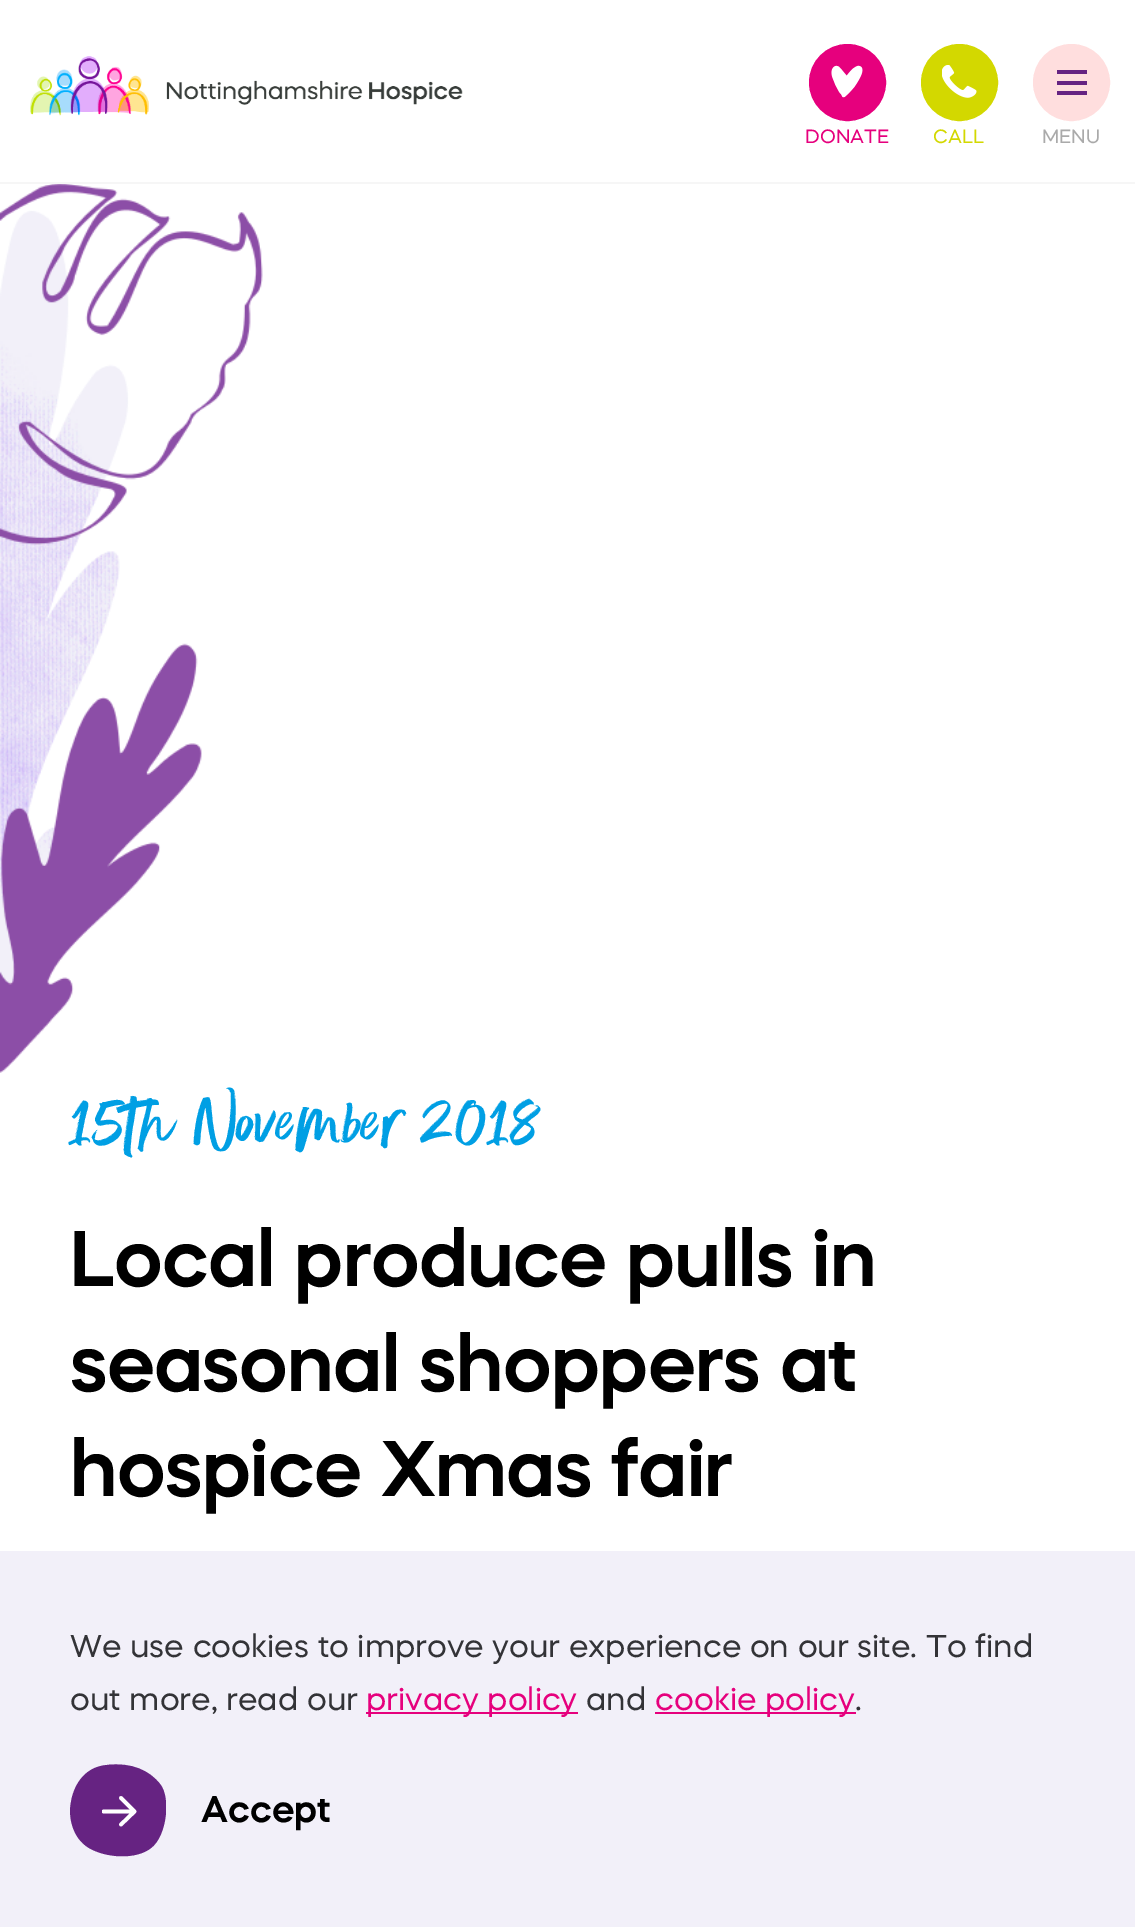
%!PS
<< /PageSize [1135 1927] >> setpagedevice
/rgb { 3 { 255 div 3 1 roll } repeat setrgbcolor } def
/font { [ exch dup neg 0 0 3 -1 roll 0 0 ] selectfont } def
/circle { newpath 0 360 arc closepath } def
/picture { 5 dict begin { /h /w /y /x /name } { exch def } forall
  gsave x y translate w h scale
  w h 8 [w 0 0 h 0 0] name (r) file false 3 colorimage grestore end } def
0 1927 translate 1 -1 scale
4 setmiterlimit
255 255 255 rgb
0 0 1135 1927 rectfill
246 246 246 rgb
0 182 1135 2 rectfill
(img/1.rgb) 30 56 433 60 picture
230 0 125 rgb
847.5 82.5 36.5 circle gsave fill grestore
4 setlinewidth
stroke
(img/2.rgb) 831 65 32 33 picture
211 216 0 rgb
959.5 82.5 36.5 circle gsave fill grestore
stroke
(img/3.rgb) 942 65 35 33 picture
255 222 222 rgb
1071.5 82.5 36.5 circle gsave fill grestore
stroke
[
  [1057 81 30 4 102 35 130]
  [1057 70 30 4 102 35 130]
  [1057 91 30 4 102 35 130]
] { aload pop rgb rectfill } forall
(img/4.rgb) 0 184 263 889 picture
[
  [0 1551 1135 376 242 240 249]
  [366 1712 212 2 230 0 125]
  [655 1712 201 2 230 0 125]
] { aload pop rgb rectfill } forall
gsave
70 1762 96 97 rectclip
102 35 130 rgb
107 1765 moveto 82 1767 73 1789 71 1802 curveto 68 1816 72 1838 89 1848 curveto 106 1858 136 1860 151 1848 curveto 167 1836 171 1797 160 1784 curveto 150 1771 132 1762 107 1765 curveto closepath eofill
grestore
gsave
102 1794 35 35 rectclip
255 255 255 rgb
3.7 setlinewidth
1 setlinecap
1 setlinejoin
103.5 1811.5 moveto 133 1811.5 lineto 121 1798 moveto 134.5 1811.5 lineto 121 1824.5 lineto stroke
grestore
/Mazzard-Regular 19.25 font
805 143 moveto (DONATE) show
211 216 0 rgb
933 143 moveto (CALL) show
170 170 170 rgb
1042 143 moveto (MENU) show
/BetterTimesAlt-Regular 78.75 font
0 159 228 rgb
70 1151 moveto (15th November 2018) show
/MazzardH-SemiBold 78.75 font
0 0 0 rgb
70 1286 moveto -0.55 0 (Local produce pulls in) ashow
70 1391 moveto -0.55 0 (seasonal shoppers at) ashow
70 1496 moveto -0.55 0 (hospice Xmas fair) ashow
/Mazzard-Regular 31.5 font
51 51 55 rgb
70 1657 moveto (We use cookies to improve your experience on our site. To find) show
70 1710 moveto (out more, read our) show
230 0 125 rgb
366 1710 moveto (privacy policy) show
51 51 55 rgb
586 1710 moveto (and) show
230 0 125 rgb
655 1710 moveto (cookie policy) show
51 51 55 rgb
855 1710 moveto (.) show
/MazzardH-SemiBold 37 font
0 0 0 rgb
201 1822 moveto (Accept) show
showpage
